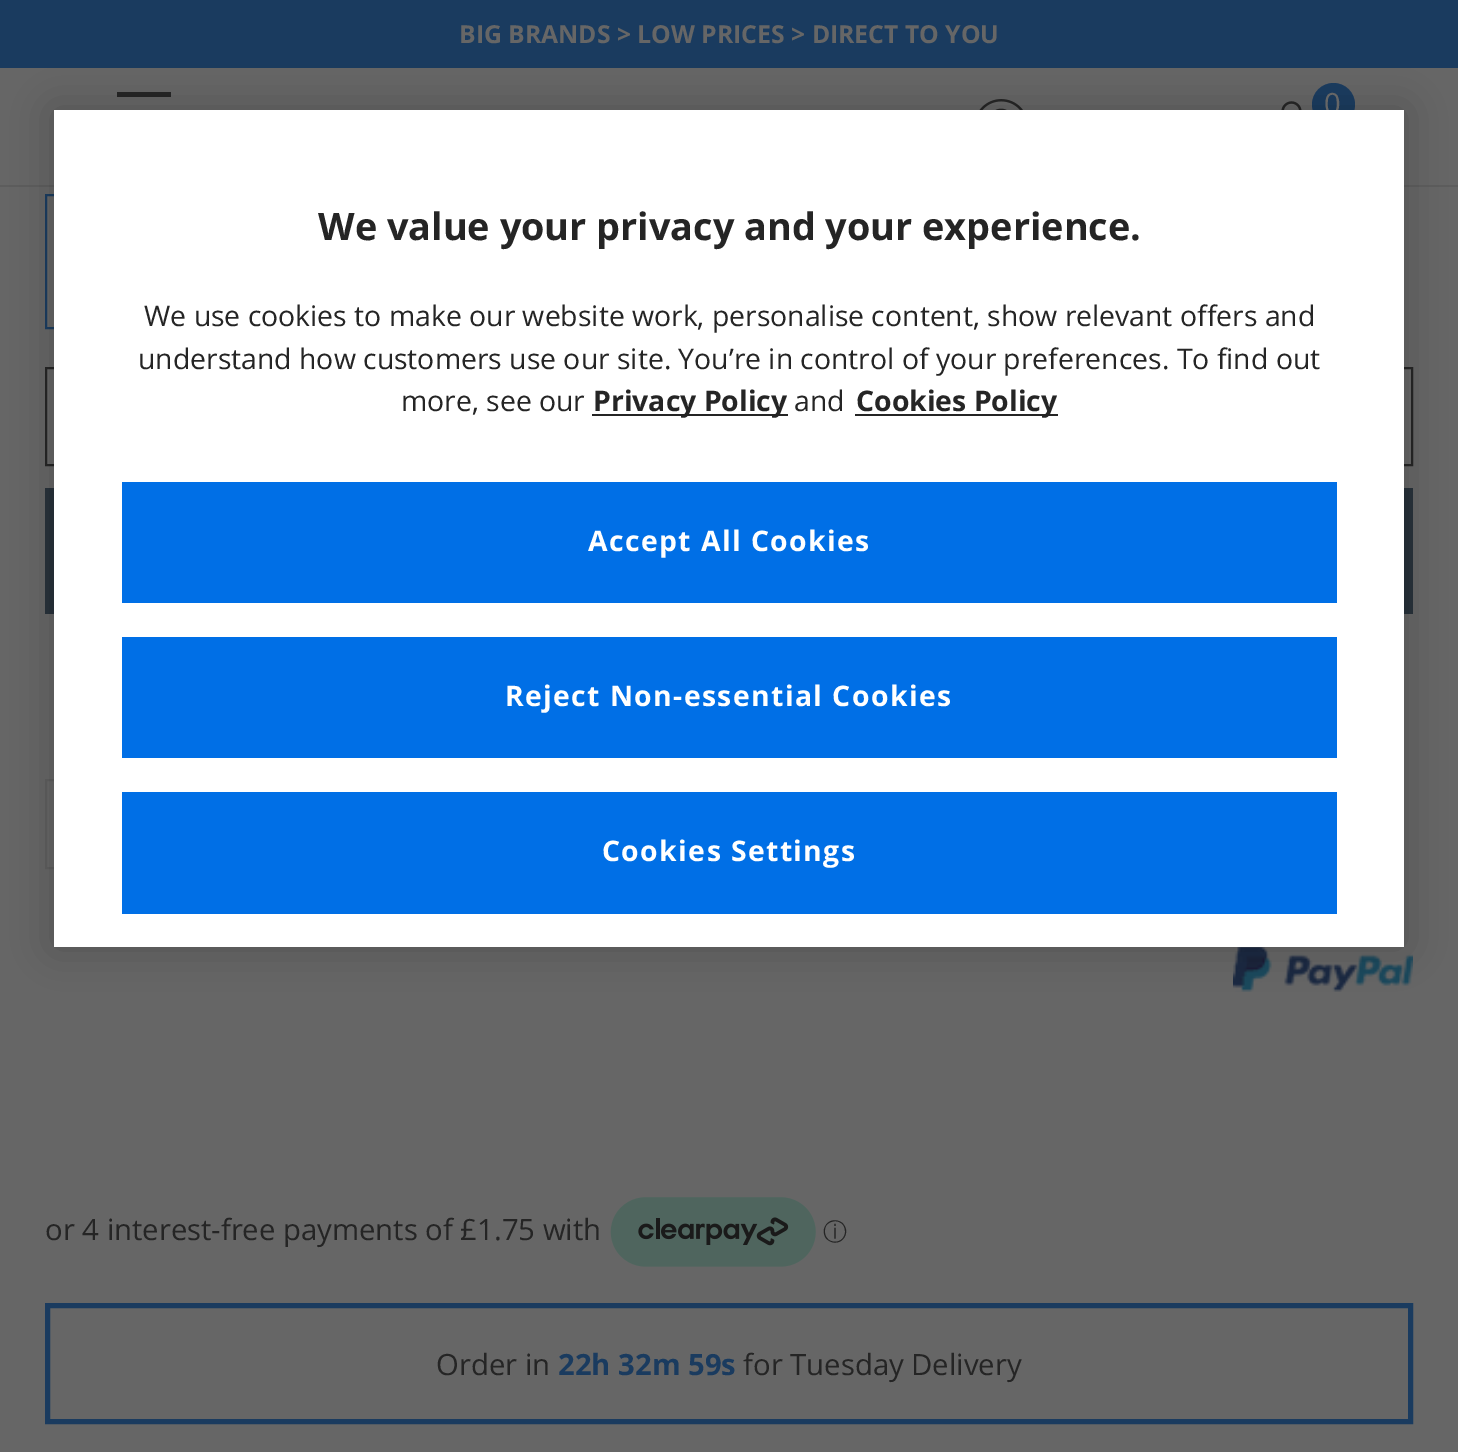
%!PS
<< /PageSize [1458 1452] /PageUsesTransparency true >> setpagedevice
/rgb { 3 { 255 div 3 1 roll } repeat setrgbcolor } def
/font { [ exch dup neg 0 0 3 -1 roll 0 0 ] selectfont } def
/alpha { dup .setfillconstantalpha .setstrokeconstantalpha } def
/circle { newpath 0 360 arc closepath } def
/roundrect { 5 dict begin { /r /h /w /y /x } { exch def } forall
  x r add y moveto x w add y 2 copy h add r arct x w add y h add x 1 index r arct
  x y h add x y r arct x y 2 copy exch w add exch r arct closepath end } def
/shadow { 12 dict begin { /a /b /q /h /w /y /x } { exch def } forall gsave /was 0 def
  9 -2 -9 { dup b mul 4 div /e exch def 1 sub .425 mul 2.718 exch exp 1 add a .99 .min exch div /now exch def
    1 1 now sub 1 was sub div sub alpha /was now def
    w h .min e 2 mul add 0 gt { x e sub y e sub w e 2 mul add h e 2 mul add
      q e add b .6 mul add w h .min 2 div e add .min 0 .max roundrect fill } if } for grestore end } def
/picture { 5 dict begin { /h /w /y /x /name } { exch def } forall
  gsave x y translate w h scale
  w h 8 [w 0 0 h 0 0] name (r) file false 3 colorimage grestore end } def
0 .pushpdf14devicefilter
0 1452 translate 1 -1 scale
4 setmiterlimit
102 102 102 rgb
0 0 1458 1452 rectfill
[
  [0 0 1458 68 26 59 95]
  [0 185 1458 2 93 93 93]
  [117 92 54 5 37 37 37]
] { aload pop rgb rectfill } forall
(img/1.rgb) 979 99 44 11 picture
(img/2.rgb) 1281 101 21 9 picture
26 59 95 rgb
1333.5 104.5 21.5 circle fill
2 setlinewidth
46 195 133 133 rectstroke
37 37 37 rgb
46 368 1366 97 rectstroke
39 48 57 rgb
45 488 1368 126 rectfill
93 93 93 rgb
46 780 257 88 rectstroke
(img/3.rgb) 1233 947 180 45 picture
0 0 0 rgb
54 110 1350 837 0 20 0.2 shadow
(img/4.rgb) 610 1197 206 70 picture
26 59 95 rgb
5 setlinewidth
47.5 1305.5 1363 116 rectstroke
/OpenSans-Bold 24.75 font
102 102 102 rgb
459 43 moveto (BIG BRANDS > LOW PRICES > DIRECT TO YOU) show
/OpenSans-Regular 29.25 font
1324 114 moveto (0) show
255 255 255 rgb
54 110 1350 837 rectfill
/OpenSans-Bold 37.8 font
37 37 37 rgb
318 240 moveto (We value your privacy and your experience.) show
/OpenSans-Regular 28.35 font
[
  [(We use cookies to make our website work, personalise content, show relevant offers and) 144 326]
  [(understand how customers use our site. You’re in control of your preferences. To find out) 138 369]
  [(more, see our) 401 411]
] { aload pop moveto show } forall
592 414 196 2 rectfill
/OpenSans-Bold 28.35 font
593 411 moveto (Privacy Policy) show
/OpenSans-Regular 28.35 font
794 411 moveto (and) show
855 414 203 2 rectfill
/OpenSans-Bold 28.35 font
856 411 moveto (Cookies Policy) show
0 111 230 rgb
122 482 1215 121 rectfill
255 255 255 rgb
588 551 moveto 1.4 0 (Accept All Cookies) ashow
0 111 230 rgb
122 637 1215 121 rectfill
255 255 255 rgb
505 706 moveto 1.4 0 (Reject Non-essential Cookies) ashow
0 111 230 rgb
122 792 1215 122 rectfill
255 255 255 rgb
602 861 moveto 1.4 0 (Cookies Settings) ashow
/OpenSans-Regular 29.25 font
37 37 37 rgb
45 1240 moveto (or 4 interest-free payments of £1.75 with) show
/WenQuanYiZenHei-Medium 24 font
823 1240 moveto (ⓘ) show
/OpenSans-Regular 29.25 font
436 1375 moveto (Order in) show
/OpenSans-Bold 29.25 font
26 59 95 rgb
558 1375 moveto (22h 32m 59s) show
/OpenSans-Regular 29.25 font
37 37 37 rgb
743 1375 moveto (for Tuesday Delivery) show
.poppdf14devicefilter showpage
